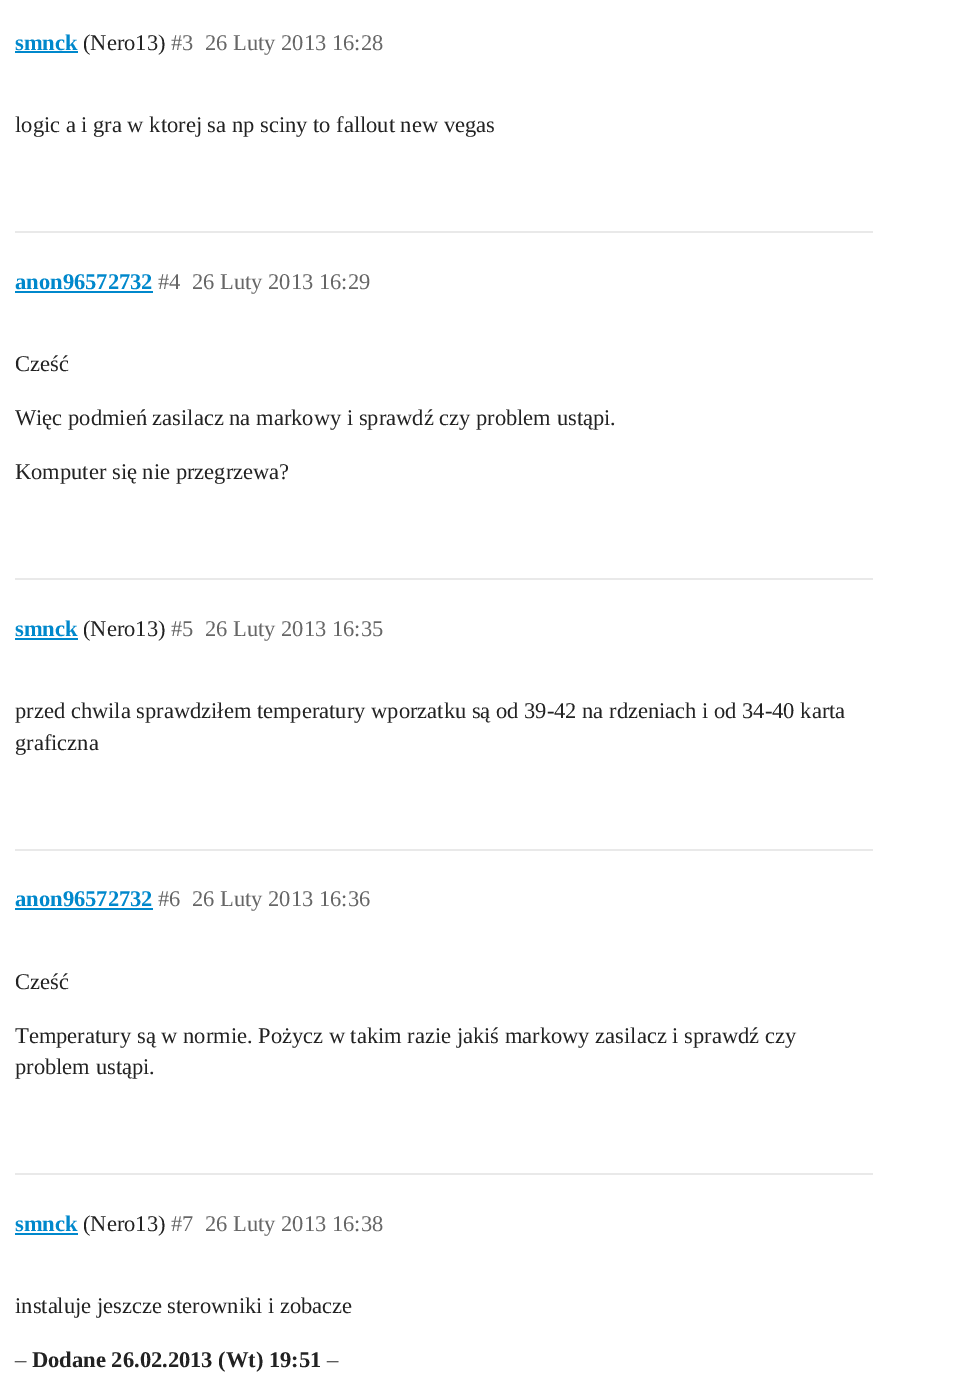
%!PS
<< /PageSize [958 1385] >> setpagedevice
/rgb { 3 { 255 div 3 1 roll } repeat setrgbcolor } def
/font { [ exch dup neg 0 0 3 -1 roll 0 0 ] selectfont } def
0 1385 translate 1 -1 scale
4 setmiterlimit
255 255 255 rgb
0 0 958 1385 rectfill
[
  [15 51 63 2 0 136 204]
  [15 231 858 2 233 233 233]
  [15 291 138 2 0 136 204]
  [15 578 858 2 233 233 233]
  [15 638 63 2 0 136 204]
  [15 849 858 2 233 233 233]
  [15 908 138 2 0 136 204]
  [15 1173 858 2 233 233 233]
  [15 1233 63 2 0 136 204]
] { aload pop rgb rectfill } forall
/LiberationSerif-Bold 22.5 font
15 50 moveto (smnck) show
/LiberationSerif-Regular 22.5 font
34 34 34 rgb
83 50 moveto (\(Nero13\)) show
102 102 102 rgb
171 50 moveto (#3) show
205 50 moveto (26 Luty 2013 16:28) show
34 34 34 rgb
15 132 moveto (logic a i gra w ktorej sa np sciny to fallout new vegas) show
/LiberationSerif-Bold 22.5 font
0 136 204 rgb
15 289 moveto (anon96572732) show
/LiberationSerif-Regular 22.5 font
102 102 102 rgb
158 289 moveto (#4) show
192 289 moveto (26 Luty 2013 16:29) show
34 34 34 rgb
[
  [(Cześć) 15 371]
  [(Więc podmień zasilacz na markowy i sprawdź czy problem ustąpi.) 15 425]
  [(Komputer się nie przegrzewa?) 15 479]
] { aload pop moveto show } forall
/LiberationSerif-Bold 22.5 font
0 136 204 rgb
15 636 moveto (smnck) show
/LiberationSerif-Regular 22.5 font
34 34 34 rgb
83 636 moveto (\(Nero13\)) show
102 102 102 rgb
171 636 moveto (#5) show
205 636 moveto (26 Luty 2013 16:35) show
34 34 34 rgb
15 718 moveto (przed chwila sprawdziłem temperatury wporzatku są od 39-42 na rdzeniach i od 34-40 karta) show
15 750 moveto (graficzna) show
/LiberationSerif-Bold 22.5 font
0 136 204 rgb
15 906 moveto (anon96572732) show
/LiberationSerif-Regular 22.5 font
102 102 102 rgb
158 906 moveto (#6) show
192 906 moveto (26 Luty 2013 16:36) show
34 34 34 rgb
[
  [(Cześć) 15 989]
  [(Temperatury są w normie. Pożycz w takim razie jakiś markowy zasilacz i sprawdź czy) 15 1043]
  [(problem ustąpi.) 15 1074]
] { aload pop moveto show } forall
/LiberationSerif-Bold 22.5 font
0 136 204 rgb
15 1231 moveto (smnck) show
/LiberationSerif-Regular 22.5 font
34 34 34 rgb
83 1231 moveto (\(Nero13\)) show
102 102 102 rgb
171 1231 moveto (#7) show
205 1231 moveto (26 Luty 2013 16:38) show
34 34 34 rgb
15 1313 moveto (instaluje jeszcze sterowniki i zobacze) show
15 1367 moveto (–) show
/LiberationSerif-Bold 22.5 font
32 1367 moveto (Dodane 26.02.2013 \(Wt\) 19:51) show
/LiberationSerif-Regular 22.5 font
327 1367 moveto (–) show
showpage
